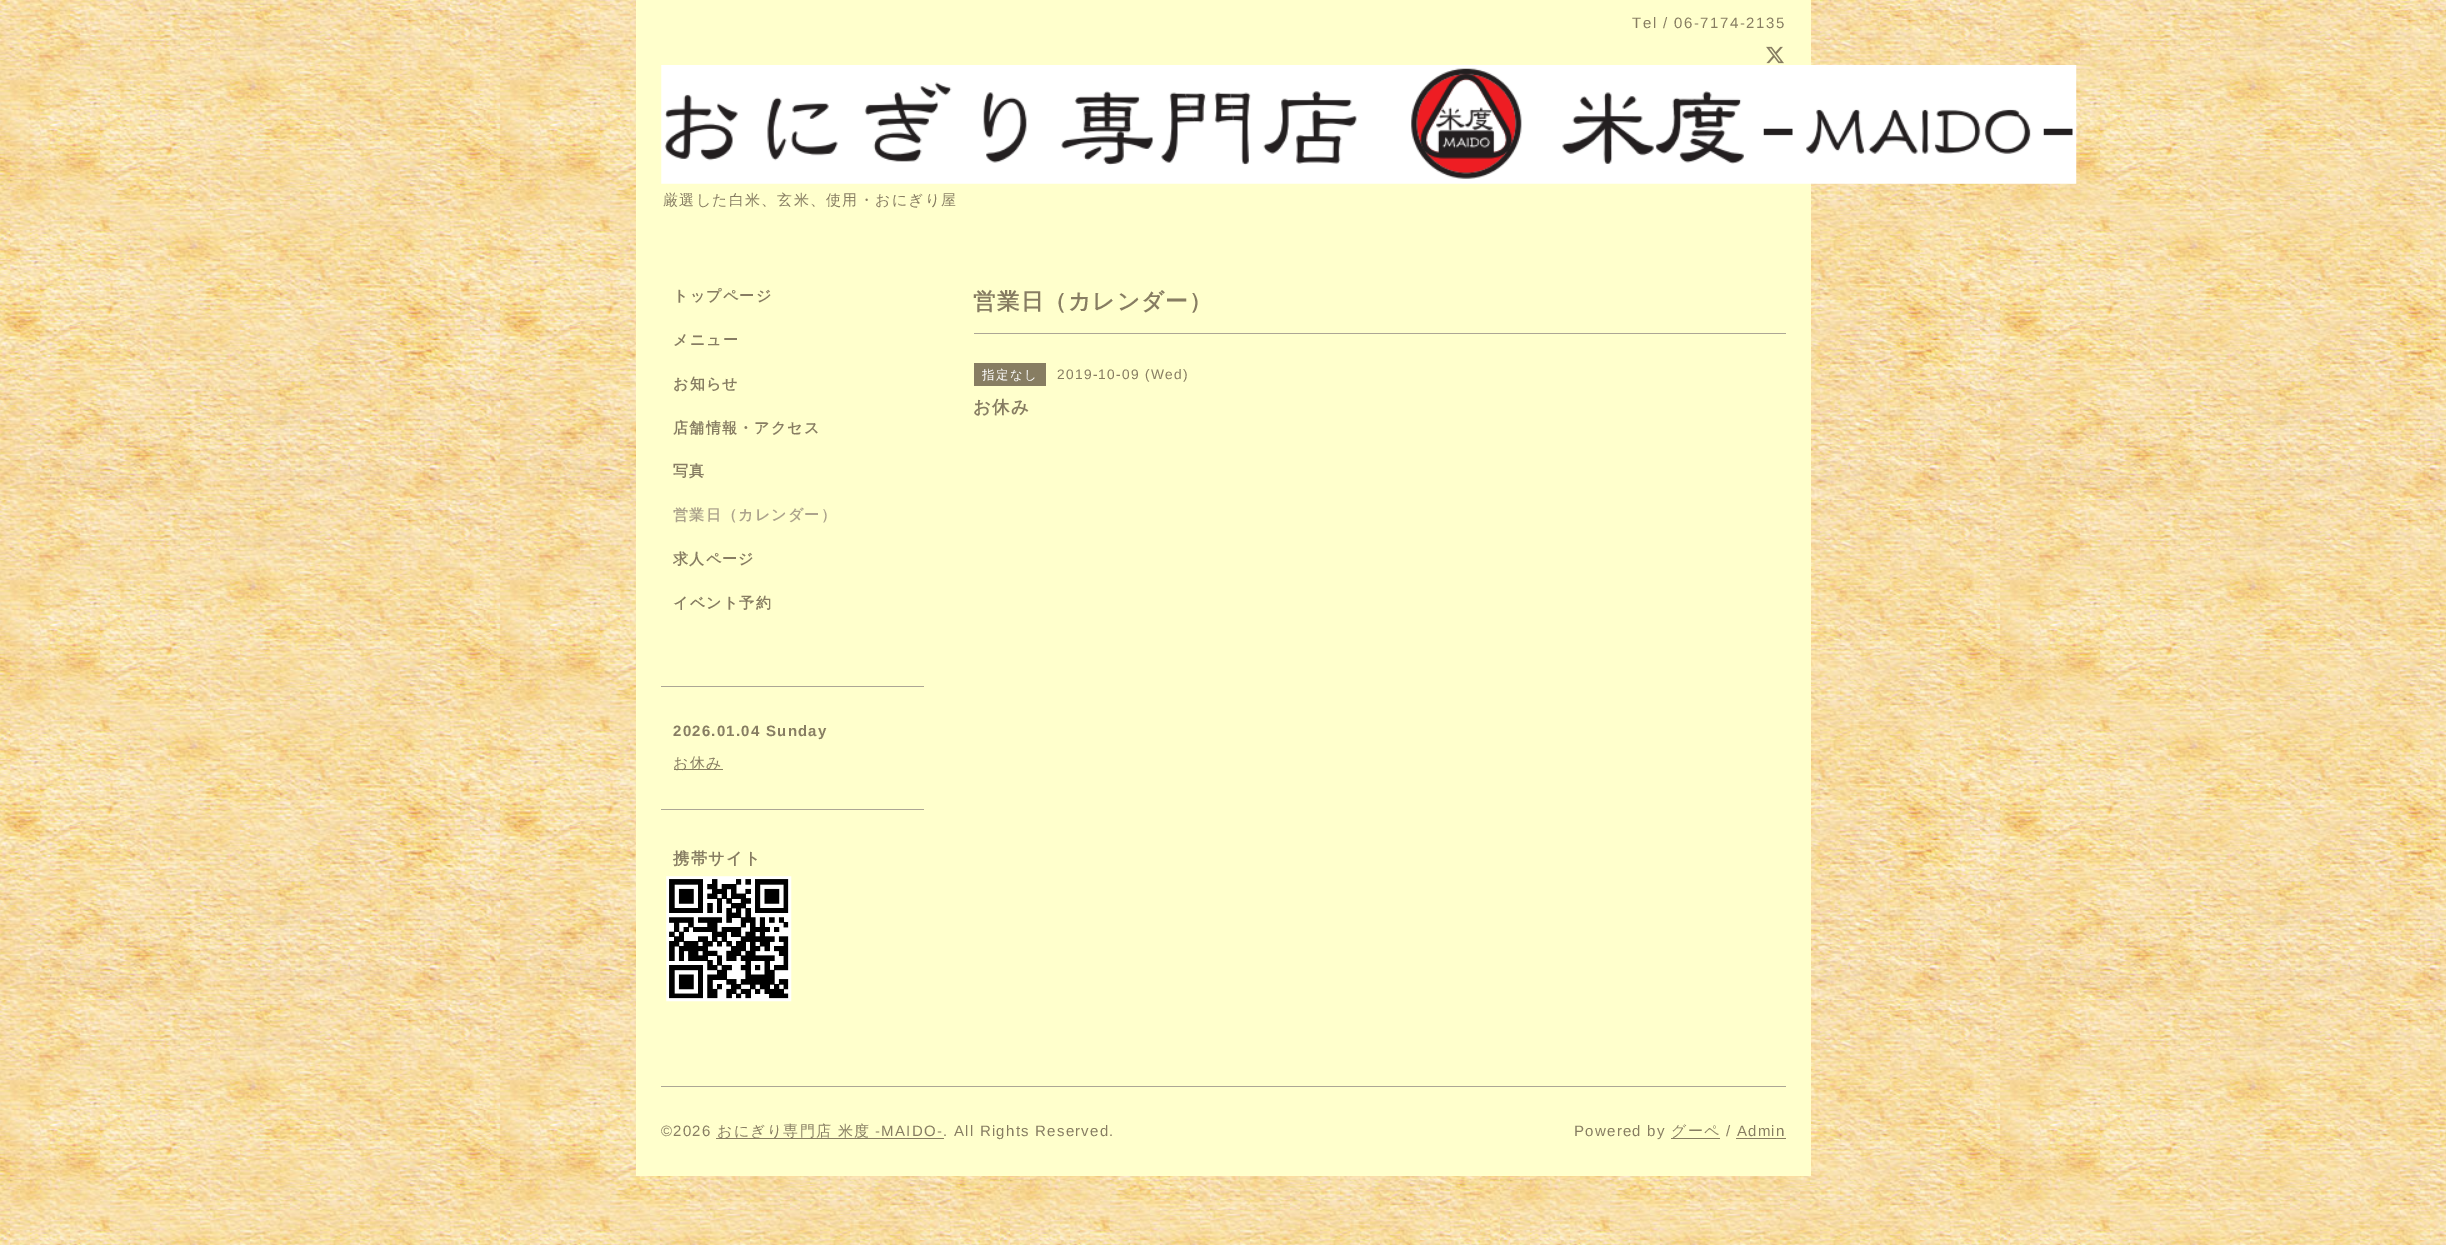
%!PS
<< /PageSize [2446 1245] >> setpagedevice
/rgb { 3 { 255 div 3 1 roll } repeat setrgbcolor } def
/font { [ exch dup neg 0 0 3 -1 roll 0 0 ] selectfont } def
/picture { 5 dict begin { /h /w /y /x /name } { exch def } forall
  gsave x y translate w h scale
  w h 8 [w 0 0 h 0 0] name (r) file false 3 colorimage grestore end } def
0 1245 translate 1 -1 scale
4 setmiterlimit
255 255 255 rgb
0 0 2446 1245 rectfill
(img/1.rgb) 0 0 2446 1245 picture
255 255 204 rgb
636 0 1175 1176 rectfill
(img/2.rgb) 1766 46 18 18 picture
(img/3.rgb) 661 65 1416 119 picture
[
  [974 333 812 1 172 166 149]
  [974 363 72 23 135 125 98]
  [661 686 263 1 172 166 149]
  [661 809 263 1 172 166 149]
  [674 769 49 1 135 125 98]
] { aload pop rgb rectfill } forall
(img/4.rgb) 666 876 126 126 picture
[
  [661 1086 1125 1 172 166 149]
  [716 1138 228 1 135 125 98]
  [1671 1138 49 1 135 125 98]
  [1736 1138 50 1 135 125 98]
] { aload pop rgb rectfill } forall
/LiberationSans-Regular 15 font
1632 28 moveto 1.5 0 (Tel / 06-7174-2135) ashow
/WenQuanYiZenHei-Medium 15 font
663 205 moveto 1.25 0 (厳選した白米、玄米、使用・おにぎり屋) ashow
/WenQuanYiZenHei-Bold 15 font
673 301 moveto 1.25 0 (トップページ) ashow
673 345 moveto 1.25 0 (メニュー) ashow
673 389 moveto 1.25 0 (お知らせ) ashow
673 433 moveto 1.25 0 (店舗情報・アクセス) ashow
673 476 moveto 1.25 0 (写真) ashow
172 163 140 rgb
673 520 moveto 1.25 0 (営業日（カレンダー）) ashow
135 125 98 rgb
673 564 moveto 1.25 0 (求人ページ) ashow
673 608 moveto 1.25 0 (イベント予約) ashow
/WenQuanYiZenHei-Bold 22.5 font
973 309 moveto 1.25 0 (営業日（カレンダー）) ashow
/WenQuanYiZenHei-Medium 12.5 font
255 255 255 rgb
982 379 moveto 1.25 0 (指定なし) ashow
/LiberationSans-Regular 13.75 font
135 125 98 rgb
1057 379 moveto 1.25 0 (2019-10-09 \(Wed\)) ashow
/WenQuanYiZenHei-Bold 17.5 font
973 413 moveto 1.25 0 (お休み) ashow
/LiberationSans-Bold 15 font
673 736 moveto 1.25 0 (2026.01.04 Sunday) ashow
/WenQuanYiZenHei-Medium 15 font
673 768 moveto 1.25 0 (お休み) ashow
/WenQuanYiZenHei-Bold 16.25 font
673 864 moveto 1.25 0 (携帯サイト) ashow
/LiberationSans-Regular 15 font
661 1136 moveto 1.25 0 (©2026) ashow
/WenQuanYiZenHei-Medium 15 font
717 1136 moveto 1.25 0 (おにぎり専門店 米度) ashow
/LiberationSans-Regular 15 font
875 1136 moveto 1.25 0 (-MAIDO-) ashow
943 1136 moveto 1.25 0 (. All Rights Reserved.) ashow
1574 1136 moveto 1.25 0 (Powered by) ashow
/WenQuanYiZenHei-Medium 15 font
1671 1136 moveto 1.25 0 (グーペ) ashow
/LiberationSans-Regular 15 font
1726 1136 moveto 1.25 0 (/ Admin) ashow
showpage
